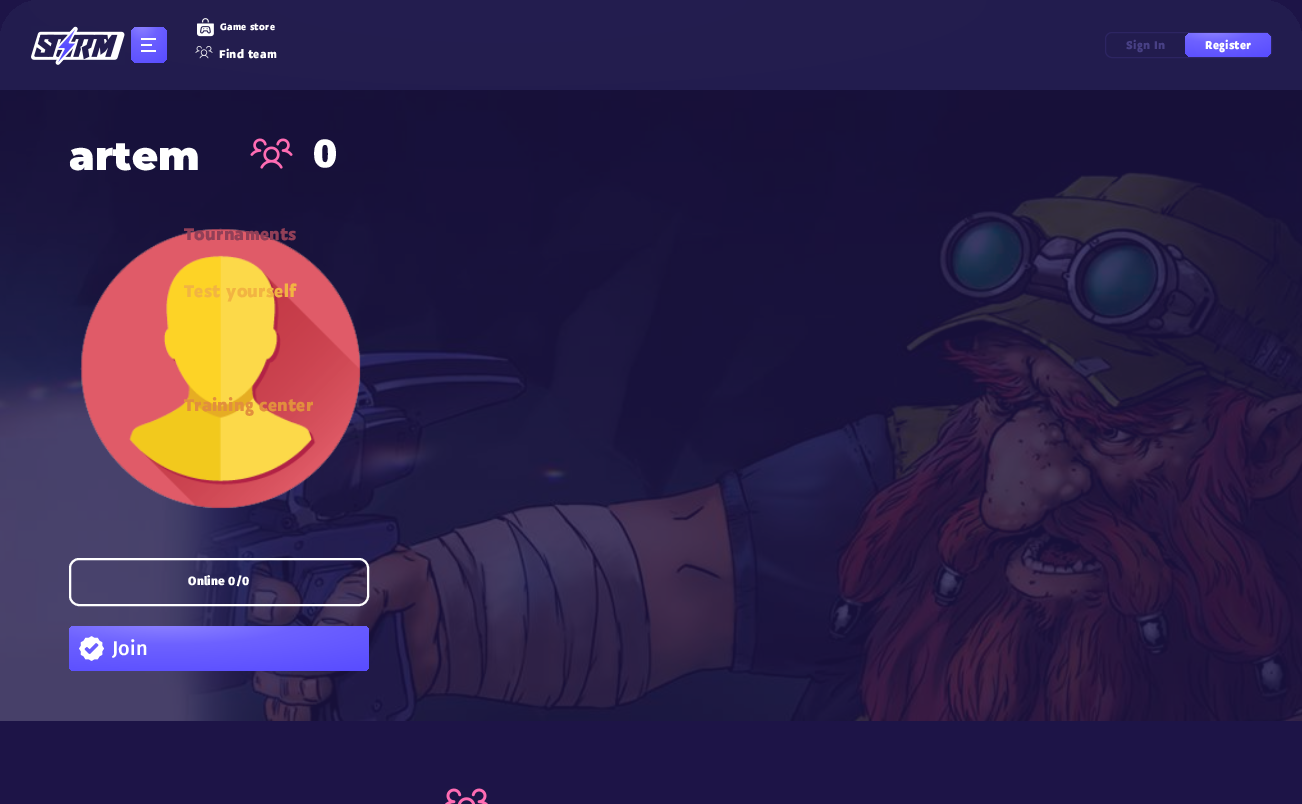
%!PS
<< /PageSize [1302 804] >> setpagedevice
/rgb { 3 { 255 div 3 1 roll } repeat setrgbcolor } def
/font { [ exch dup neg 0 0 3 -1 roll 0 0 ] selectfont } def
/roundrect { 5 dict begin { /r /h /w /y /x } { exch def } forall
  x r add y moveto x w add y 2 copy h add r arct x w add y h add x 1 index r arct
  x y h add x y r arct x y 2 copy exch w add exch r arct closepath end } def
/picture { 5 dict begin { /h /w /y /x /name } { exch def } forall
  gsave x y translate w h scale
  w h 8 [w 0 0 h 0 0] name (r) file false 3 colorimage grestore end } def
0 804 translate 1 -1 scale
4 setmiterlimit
29 20 71 rgb
0 0 1302 804 rectfill
gsave 40 0 moveto 1262 0 lineto 1284 0 1302 18 1302 40 curveto 1302 90 lineto 0 90 lineto 0 40 lineto 0 18 18 0 40 0 curveto closepath clip newpath 507 0 translate 4263 764 scale
<< /ShadingType 3 /ColorSpace /DeviceRGB /Coords [0 0 0 0 0 1] /Extend [true true] /Function << /FunctionType 2 /Domain [0 1] /C0 [0.137 0.114 0.31] /C1 [0.118 0.098 0.282] /N 1 >> >> shfill grestore
(img/1.rgb) 31 26 94 39 picture
(img/2.rgb) 197 18 17 19 picture
(img/3.rgb) 195 46 18 13 picture
45 37 98 rgb
1105.5 32.5 166 25 6.5 roundrect stroke
gsave 1185 33 86 24 7 roundrect clip newpath 1212 30 translate 114 37 scale
<< /ShadingType 3 /ColorSpace /DeviceRGB /Coords [0 0 0 0 0 1] /Extend [true true] /Function << /FunctionType 3 /Domain [0 1] /Functions [<< /FunctionType 2 /Domain [0 1] /C0 [0.569 0.525 1] /C1 [0.427 0.38 1] /N 1 >> << /FunctionType 2 /Domain [0 1] /C0 [0.427 0.38 1] /C1 [0.341 0.29 1] /N 1 >> << /FunctionType 2 /Domain [0 1] /C0 [0.341 0.29 1] /C1 [0.341 0.29 1] /N 1 >>] /Bounds [0.34 0.92] /Encode [0 1 0 1 0 1] >> >> shfill grestore
gsave 131 27 36 36 7 roundrect clip newpath 142 23 translate 48 56 scale
<< /ShadingType 3 /ColorSpace /DeviceRGB /Coords [0 0 0 0 0 1] /Extend [true true] /Function << /FunctionType 3 /Domain [0 1] /Functions [<< /FunctionType 2 /Domain [0 1] /C0 [0.569 0.525 1] /C1 [0.427 0.38 1] /N 1 >> << /FunctionType 2 /Domain [0 1] /C0 [0.427 0.38 1] /C1 [0.341 0.29 1] /N 1 >> << /FunctionType 2 /Domain [0 1] /C0 [0.341 0.29 1] /C1 [0.341 0.29 1] /N 1 >>] /Bounds [0.34 0.92] /Encode [0 1 0 1 0 1] >> >> shfill grestore
[
  [141 38 15 2 255 255 255]
  [141 44 11 2 255 255 255]
  [141 50 15 2 255 255 255]
] { aload pop rgb rectfill } forall
(img/4.rgb) 0 90 1302 631 picture
(img/5.rgb) 250 138 43 31 picture
(img/6.rgb) 80 228 281 281 picture
2 setlinewidth
70 559 298 46 9 roundrect stroke
gsave 69 626 300 45 5 roundrect clip newpath 165 621 translate 398 70 scale
<< /ShadingType 3 /ColorSpace /DeviceRGB /Coords [0 0 0 0 0 1] /Extend [true true] /Function << /FunctionType 3 /Domain [0 1] /Functions [<< /FunctionType 2 /Domain [0 1] /C0 [0.569 0.525 1] /C1 [0.427 0.38 1] /N 1 >> << /FunctionType 2 /Domain [0 1] /C0 [0.427 0.38 1] /C1 [0.341 0.29 1] /N 1 >> << /FunctionType 2 /Domain [0 1] /C0 [0.341 0.29 1] /C1 [0.341 0.29 1] /N 1 >>] /Bounds [0.34 0.92] /Encode [0 1 0 1 0 1] >> >> shfill grestore
(img/7.rgb) 79 636 25 25 picture
(img/8.rgb) 445 788 43 16 picture
/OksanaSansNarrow-Black 10 font
220 30 moveto 0.25 0 (Game store) ashow
/OksanaSansNarrow-Black 12 font
219 58 moveto 0.25 0 (Find team) ashow
72 64 133 rgb
1126 49 moveto 0.25 0 (Sign In) ashow
255 255 255 rgb
1205 49 moveto 0.25 0 (Register) ashow
/OksanaSansNarrow-Black 18 font
145 63 87 rgb
184 240 moveto 0.25 0 (Tournaments) ashow
242 180 66 rgb
184 297 moveto 0.25 0 (Test yourself) ashow
226 143 61 rgb
184 411 moveto 0.25 0 (Training center) ashow
/Montserrat-Black 40 font
255 255 255 rgb
69 170 moveto 0.25 0 (artem) ashow
/FiraSans-Black 40 font
313 167 moveto 0.25 0 (0) ashow
/FiraSans-Black 12 font
188 585 moveto 0.25 0 (Online 0/0) ashow
/FiraSans-Medium 20 font
112 655 moveto 0.25 0 (Join) ashow
showpage
